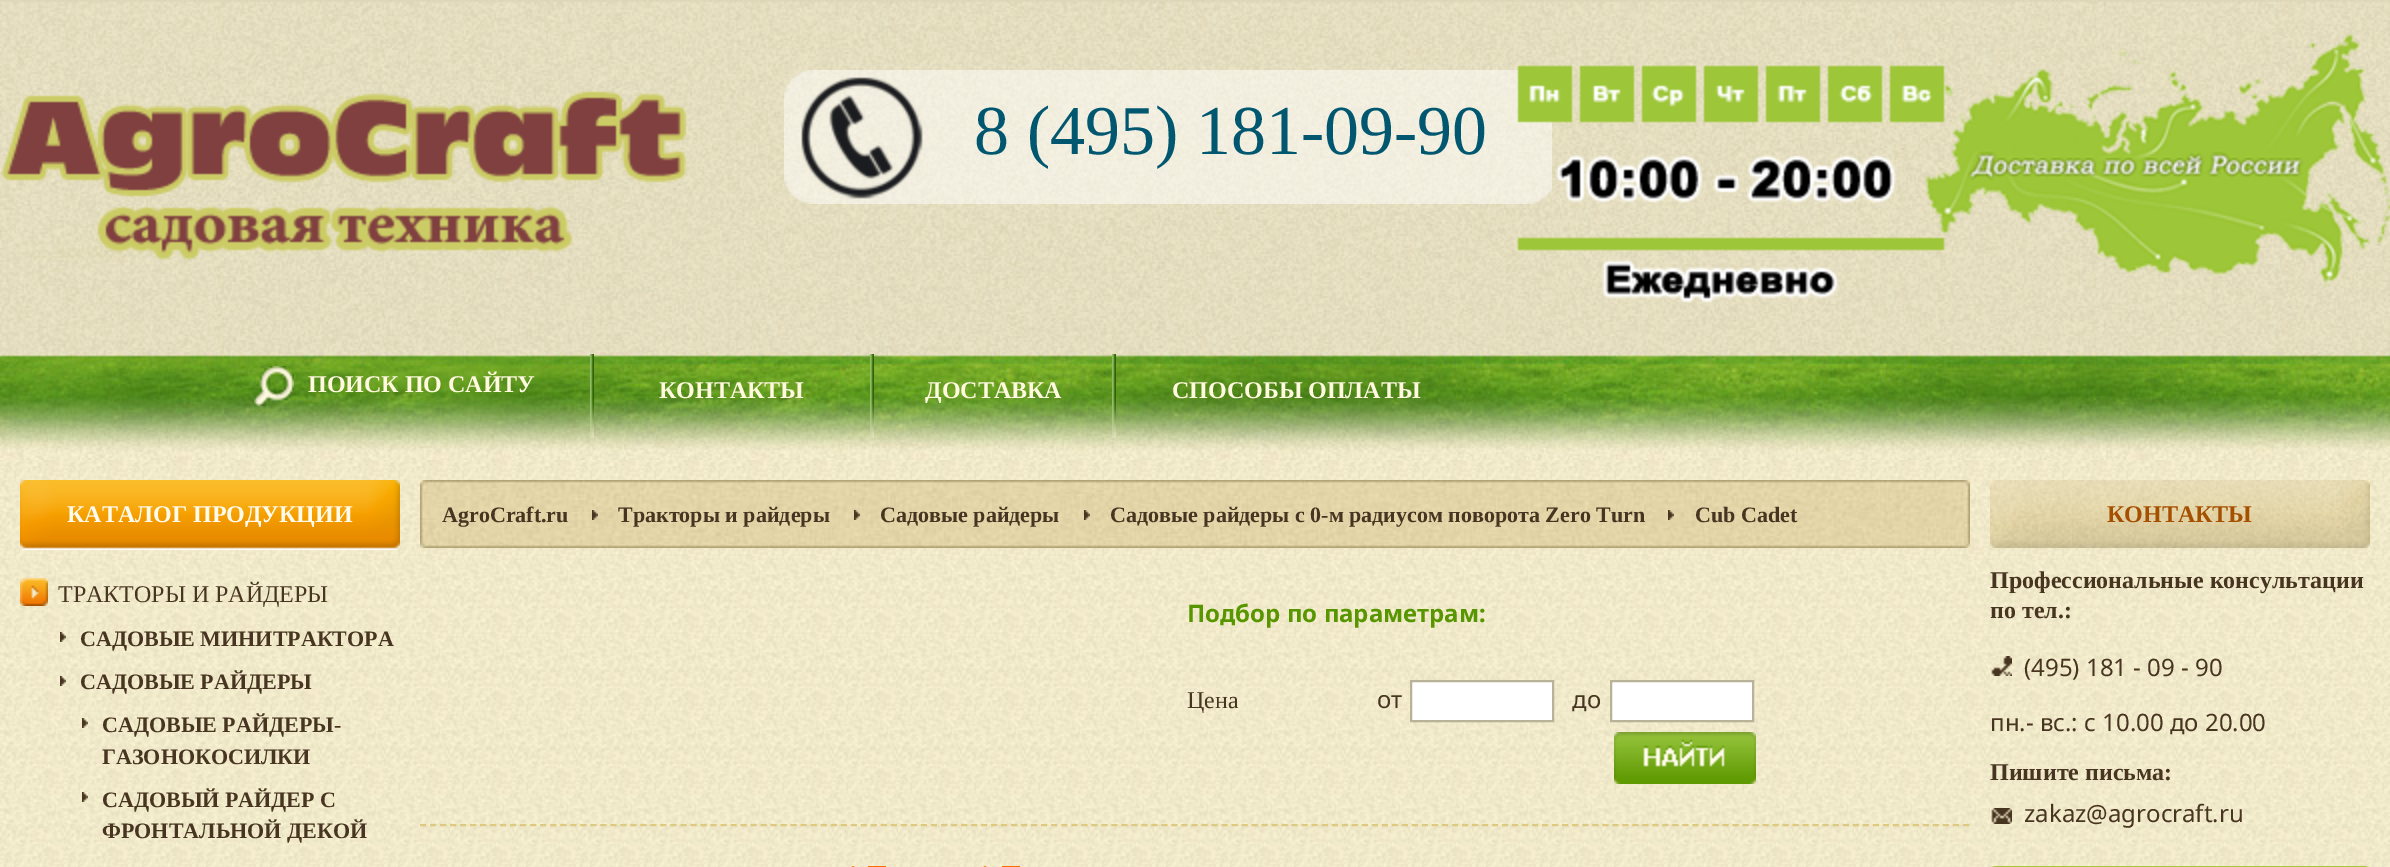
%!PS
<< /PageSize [2390 867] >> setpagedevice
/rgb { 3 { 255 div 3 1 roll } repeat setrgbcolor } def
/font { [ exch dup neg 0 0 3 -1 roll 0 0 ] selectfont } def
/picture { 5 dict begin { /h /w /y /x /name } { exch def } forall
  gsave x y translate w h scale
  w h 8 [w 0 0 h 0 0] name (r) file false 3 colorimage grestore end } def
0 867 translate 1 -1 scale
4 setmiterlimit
255 255 255 rgb
0 0 2390 867 rectfill
(img/1.rgb) 0 460 2390 407 picture
(img/2.rgb) 0 0 2390 460 picture
(img/3.rgb) 1 91 686 170 picture
(img/4.rgb) 784 70 768 134 picture
(img/5.rgb) 1517 33 873 270 picture
(img/6.rgb) 254 366 40 40 picture
(img/7.rgb) 590 354 4 84 picture
(img/7.rgb) 870 354 4 84 picture
(img/7.rgb) 1112 354 4 84 picture
(img/8.rgb) 20 480 380 70 picture
(img/9.rgb) 20 578 28 28 picture
(img/10.rgb) 60 632 6 10 picture
(img/10.rgb) 60 676 6 10 picture
(img/10.rgb) 82 718 6 10 picture
(img/10.rgb) 82 792 6 10 picture
(img/11.rgb) 420 480 1544 68 picture
(img/12.rgb) 592 510 6 10 picture
(img/13.rgb) 854 510 6 10 picture
(img/14.rgb) 1084 510 6 10 picture
(img/15.rgb) 1668 510 6 10 picture
(img/16.rgb) 1964 480 6 68 picture
1411 681 moveto 1553 681 lineto 1553 721 lineto 1411 721 lineto closepath gsave fill grestore
184 178 153 rgb
2 setlinewidth
stroke
255 255 255 rgb
1611 681 moveto 1753 681 lineto 1753 721 lineto 1611 721 lineto closepath gsave fill grestore
184 178 153 rgb
stroke
(img/17.rgb) 1614 732 142 52 picture
221 202 128 rgb
[6 4.02] 0 setdash
420 825 moveto 1970 825 lineto stroke
(img/18.rgb) 844 866 18 1 picture
255 108 0 rgb
868 866 18 1 rectfill
(img/19.rgb) 980 866 14 1 picture
1002 866 18 1 rectfill
(img/20.rgb) 1990 480 380 68 picture
(img/21.rgb) 1990 656 22 20 picture
(img/22.rgb) 1990 808 22 16 picture
(img/23.rgb) 1990 866 380 1 picture
/LiberationSerif-Regular 70 font
0 87 111 rgb
974 154 moveto (8 \(495\) 181-09-90) show
/LiberationSerif-Bold 24 font
255 249 223 rgb
[
  [(ПОИСК ПО САЙТУ) 308 392]
  [(КОНТАКТЫ) 659 398]
  [(ДОСТАВКА) 925 398]
  [(СПОСОБЫ ОПЛАТЫ) 1172 398]
] { aload pop moveto show } forall
255 251 237 rgb
67 522 moveto (КАТАЛОГ ПРОДУКЦИИ) show
/LiberationSerif-Regular 24 font
72 53 33 rgb
58 602 moveto (ТРАКТОРЫ И РАЙДЕРЫ) show
/LiberationSerif-Bold 22 font
[
  [(САДОВЫЕ МИНИТРАКТОРА) 80 646]
  [(САДОВЫЕ РАЙДЕРЫ) 80 689]
  [(САДОВЫЕ РАЙДЕРЫ-) 102 732]
  [(ГАЗОНОКОСИЛКИ) 102 764]
  [(САДОВЫЙ РАЙДЕР С) 102 807]
  [(ФРОНТАЛЬНОЙ ДЕКОЙ) 102 838]
  [(AgroCraft.ru) 442 522]
  [(Тракторы и райдеры) 618 522]
  [(Садовые райдеры) 880 522]
  [(Садовые райдеры c 0-м радиусом поворота Zero Turn) 1110 522]
  [(Cub Cadet) 1695 522]
] { aload pop moveto show } forall
/NotoSans-Bold 24 font
88 150 0 rgb
1187 622 moveto (Подбор по параметрам:) show
/LiberationSerif-Regular 24 font
72 53 33 rgb
1187 708 moveto (Цена) show
/NotoSans-Regular 24 font
1377 708 moveto (от) show
1572 708 moveto (до) show
/LiberationSerif-Bold 24 font
165 79 0 rgb
2107 522 moveto (КОНТАКТЫ) show
72 53 33 rgb
1990 588 moveto (Профессиональные консультации) show
1990 618 moveto (по тел.:) show
/NotoSans-Regular 24 font
2024 676 moveto (\(495\) 181 - 09 - 90) show
1990 731 moveto (пн.- вс.: с 10.00 до 20.00) show
/LiberationSerif-Bold 24 font
1990 780 moveto (Пишите письма:) show
/NotoSans-Regular 24 font
2024 822 moveto (zakaz@agrocraft.ru) show
showpage
